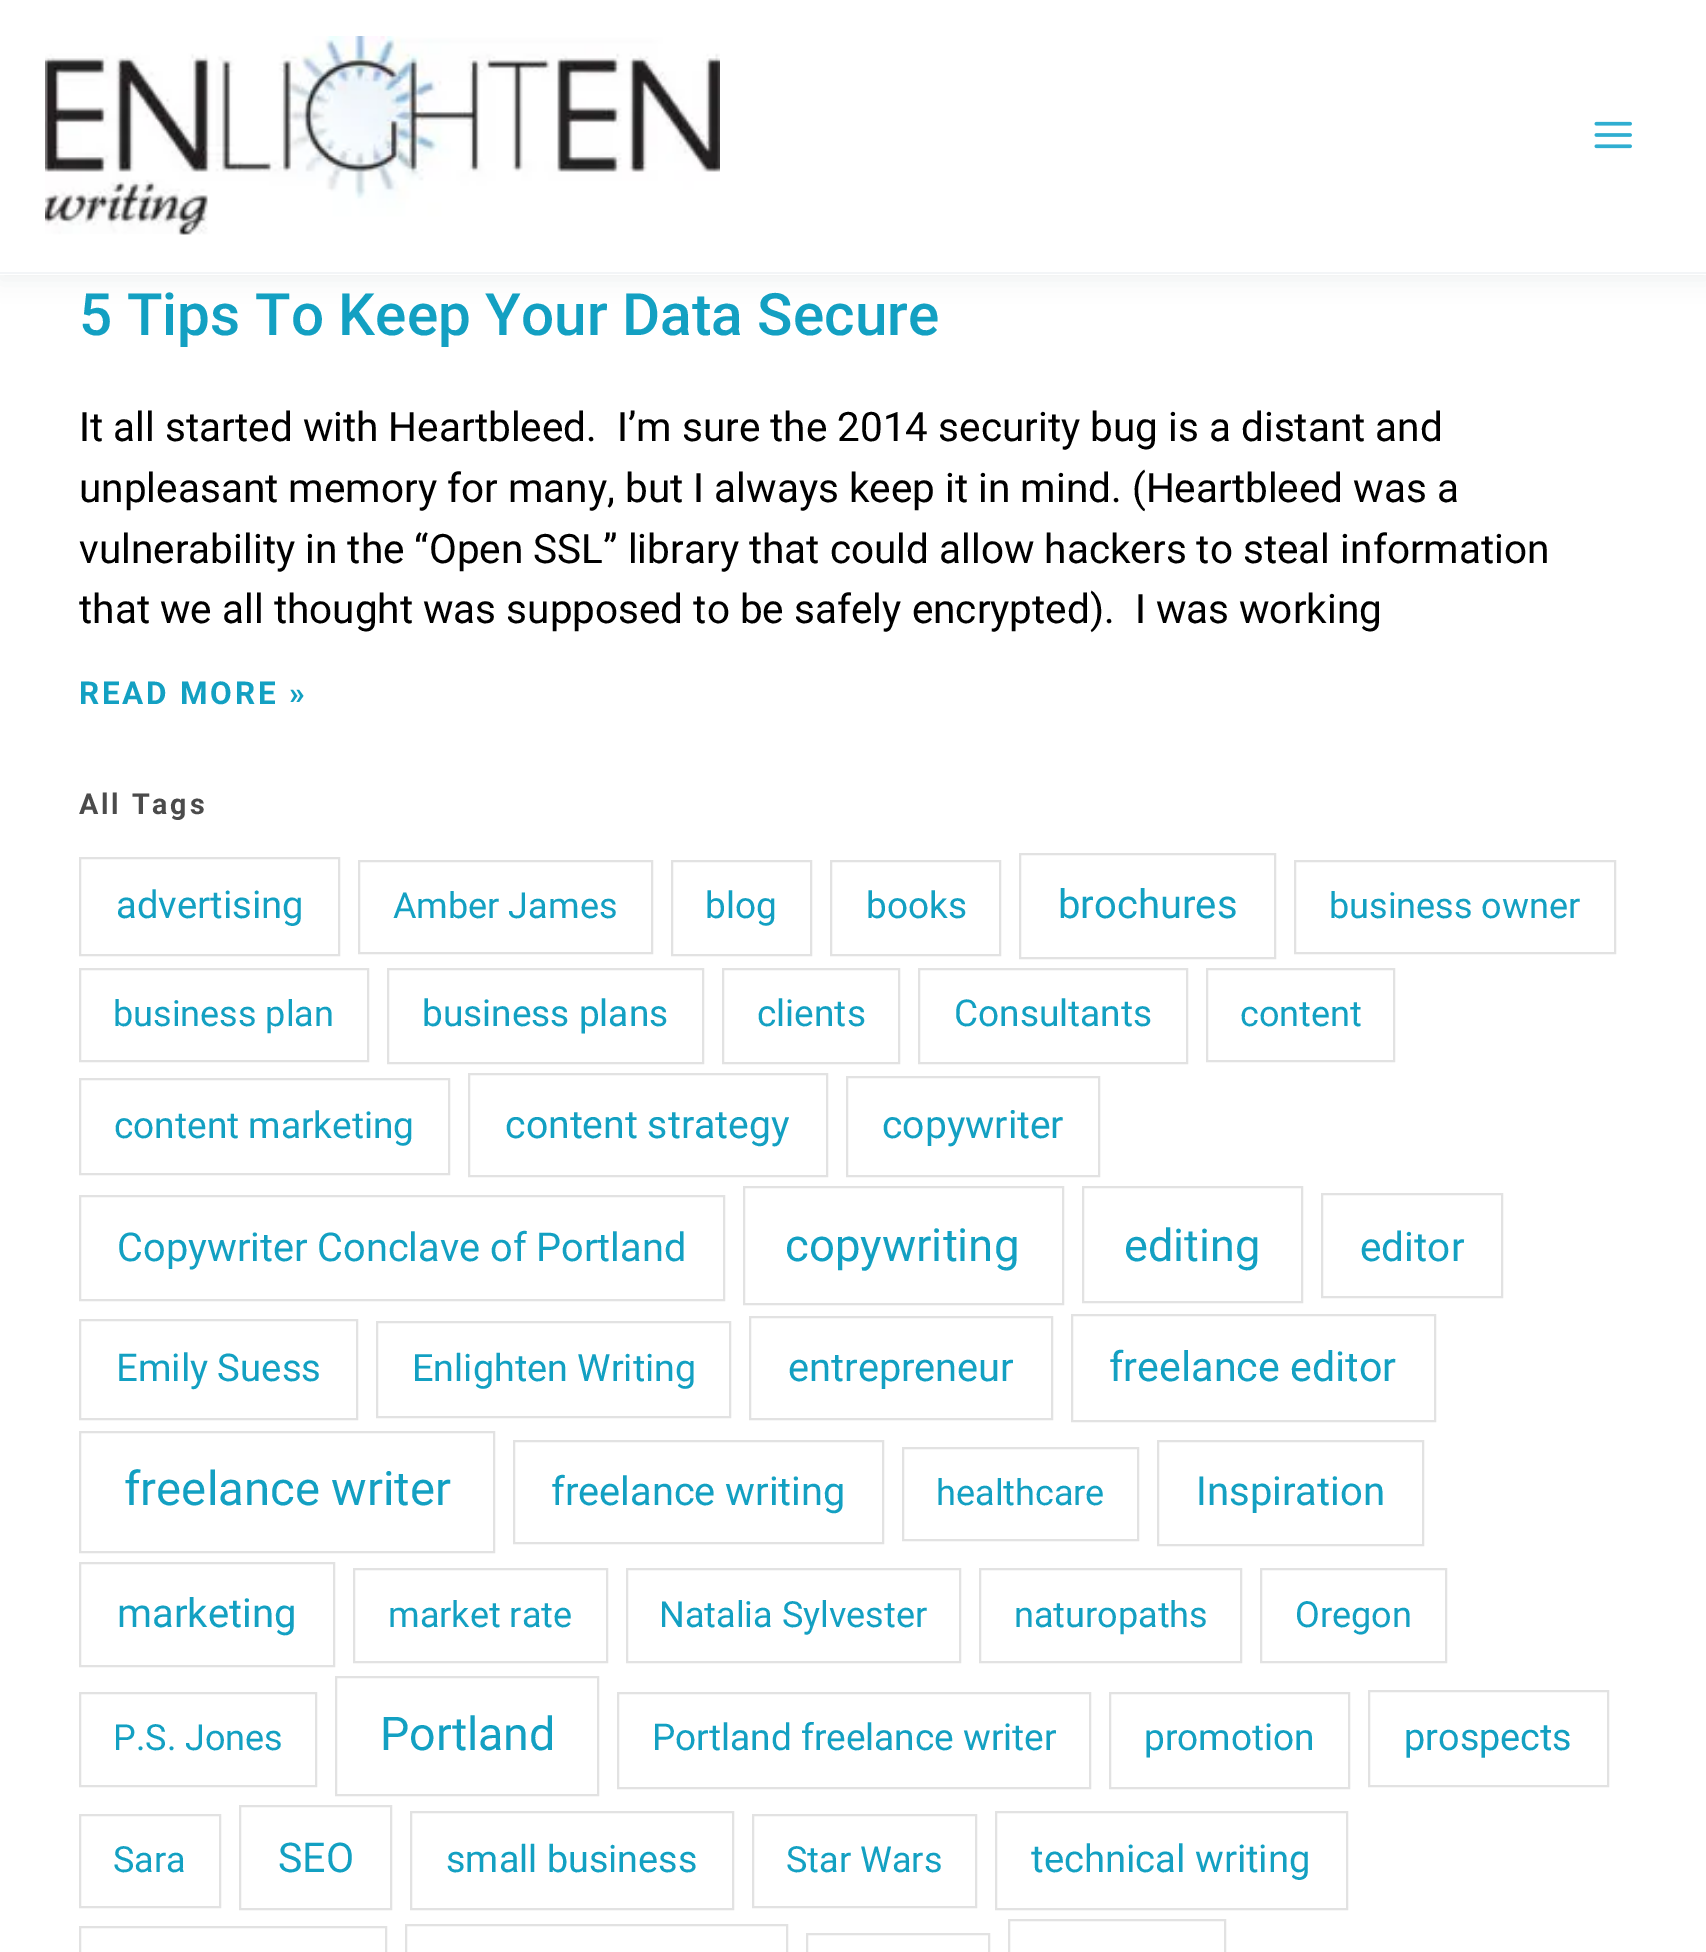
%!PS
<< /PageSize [1706 1952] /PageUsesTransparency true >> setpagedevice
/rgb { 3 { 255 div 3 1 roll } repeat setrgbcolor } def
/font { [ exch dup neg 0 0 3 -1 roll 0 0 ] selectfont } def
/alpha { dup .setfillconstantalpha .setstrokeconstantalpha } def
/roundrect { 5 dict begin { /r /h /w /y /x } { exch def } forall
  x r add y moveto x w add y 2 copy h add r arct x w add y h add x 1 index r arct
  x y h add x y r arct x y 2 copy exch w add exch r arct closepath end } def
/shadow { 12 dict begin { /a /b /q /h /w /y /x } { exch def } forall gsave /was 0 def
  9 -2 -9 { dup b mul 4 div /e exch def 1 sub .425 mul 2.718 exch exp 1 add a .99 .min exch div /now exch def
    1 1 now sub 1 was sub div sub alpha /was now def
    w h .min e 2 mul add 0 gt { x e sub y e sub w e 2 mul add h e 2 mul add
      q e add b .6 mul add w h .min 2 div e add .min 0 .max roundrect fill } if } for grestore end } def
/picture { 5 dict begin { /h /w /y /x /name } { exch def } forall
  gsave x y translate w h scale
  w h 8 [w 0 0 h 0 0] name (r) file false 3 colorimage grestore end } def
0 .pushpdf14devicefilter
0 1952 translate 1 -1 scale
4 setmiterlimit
255 255 255 rgb
0 0 1706 1952 rectfill
36 50 66 rgb
0 5 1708 274 0 11 0.07 shadow
255 255 255 rgb
0 0 1706 275 rectfill
243 245 247 rgb
0 272 1706 2 rectfill
(img/1.rgb) 45 36 675 199 picture
(img/2.rgb) 1594 121 38 28 picture
226 226 226 rgb
2 setlinewidth
80 858 259 97 rectstroke
359 861 293 92 rectstroke
672 861 139 94 rectstroke
831 861 169 94 rectstroke
1020 854 255 104 rectstroke
1295 861 320 92 rectstroke
80 969 288 92 rectstroke
388 969 315 94 rectstroke
723 969 176 94 rectstroke
919 969 268 94 rectstroke
1207 969 187 92 rectstroke
80 1079 369 95 rectstroke
469 1074 358 102 rectstroke
847 1077 252 99 rectstroke
80 1196 644 104 rectstroke
744 1187 319 117 rectstroke
1083 1187 219 115 rectstroke
1322 1194 180 103 rectstroke
80 1320 277 99 rectstroke
377 1322 353 95 rectstroke
750 1317 302 102 rectstroke
1072 1315 363 106 rectstroke
80 1432 414 120 rectstroke
514 1441 369 102 rectstroke
903 1448 235 92 rectstroke
1158 1441 265 104 rectstroke
80 1563 254 103 rectstroke
354 1569 253 93 rectstroke
627 1569 333 93 rectstroke
980 1569 261 93 rectstroke
1261 1569 185 93 rectstroke
80 1693 236 93 rectstroke
336 1677 262 118 rectstroke
618 1693 472 95 rectstroke
1110 1693 239 95 rectstroke
1369 1691 239 95 rectstroke
80 1815 140 92 rectstroke
240 1806 151 103 rectstroke
411 1812 322 97 rectstroke
753 1815 223 92 rectstroke
996 1812 351 97 rectstroke
80 1927 306 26 rectstroke
406 1925 381 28 rectstroke
807 1934 182 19 rectstroke
1009 1920 216 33 rectstroke
/Roboto-Medium 58.5 font
19 160 194 rgb
79 335 moveto (5 Tips To Keep Your Data Secure) show
/Roboto-Regular 40.5 font
0 0 0 rgb
[
  [(It all started with Heartbleed.  I’m sure the 2014 security bug is a distant and) 79 441]
  [(unpleasant memory for many, but I always keep it in mind. \(Heartbleed was a) 79 502]
  [(vulnerability in the “Open SSL” library that could allow hackers to steal information) 79 563]
  [(that we all thought was supposed to be safely encrypted\).  I was working) 79 623]
] { aload pop moveto show } forall
/Roboto-Bold 31.5 font
19 160 194 rgb
79 704 moveto 2.75 0 (READ MORE ») ashow
/Roboto-Bold 28.75 font
75 75 75 rgb
79 814 moveto 2.75 0 (All Tags) ashow
/Roboto-Regular 38.25 font
19 160 194 rgb
116 918 moveto (advertising) show
/Roboto-Regular 36 font
393 918 moveto (Amber James) show
/Roboto-Regular 37 font
705 918 moveto (blog) show
866 918 moveto (books) show
/Roboto-Regular 40 font
1058 918 moveto (brochures) show
/Roboto-Regular 36 font
1329 918 moveto (business owner) show
113 1026 moveto (business plan) show
/Roboto-Regular 37 font
[
  [(business plans) 422 1026]
  [(clients) 757 1026]
  [(Consultants) 954 1026]
] { aload pop moveto show } forall
/Roboto-Regular 36 font
1240 1026 moveto (content) show
/Roboto-Regular 37 font
114 1138 moveto (content marketing) show
/Roboto-Regular 39.25 font
505 1138 moveto (content strategy) show
/Roboto-Regular 39 font
882 1138 moveto (copywriter) show
/Roboto-Regular 39.75 font
117 1261 moveto (Copywriter Conclave of Portland) show
/Roboto-Regular 45.5 font
785 1261 moveto (copywriting) show
/Roboto-Regular 45 font
1124 1261 moveto (editing) show
/Roboto-Regular 40.5 font
1360 1261 moveto (editor) show
/Roboto-Regular 38.25 font
116 1381 moveto (Emily Suess) show
/Roboto-Regular 37.75 font
412 1381 moveto (Enlighten Writing) show
/Roboto-Regular 39.75 font
788 1381 moveto (entrepreneur) show
/Roboto-Regular 41.25 font
1109 1381 moveto (freelance editor) show
/Roboto-Regular 47.25 font
124 1505 moveto (freelance writer) show
/Roboto-Regular 39.75 font
551 1505 moveto (freelance writing) show
/Roboto-Regular 36 font
936 1505 moveto (healthcare) show
/Roboto-Regular 40 font
1196 1505 moveto (Inspiration) show
117 1627 moveto (marketing) show
/Roboto-Regular 36 font
[
  [(market rate) 388 1627]
  [(Natalia Sylvester) 659 1627]
  [(naturopaths) 1014 1627]
  [(Oregon) 1295 1627]
  [(P.S. Jones) 113 1750]
] { aload pop moveto show } forall
/Roboto-Regular 46.5 font
380 1750 moveto (Portland) show
/Roboto-Regular 37 font
652 1750 moveto (Portland freelance writer) show
1144 1750 moveto (promotion) show
/Roboto-Regular 37.75 font
1404 1750 moveto (prospects) show
/Roboto-Regular 36 font
113 1872 moveto (Sara) show
/Roboto-Regular 41 font
278 1872 moveto (SEO) show
/Roboto-Regular 37.75 font
446 1872 moveto (small business) show
/Roboto-Regular 36 font
786 1872 moveto (Star Wars) show
/Roboto-Regular 38.25 font
1031 1872 moveto (technical writing) show
.poppdf14devicefilter showpage
